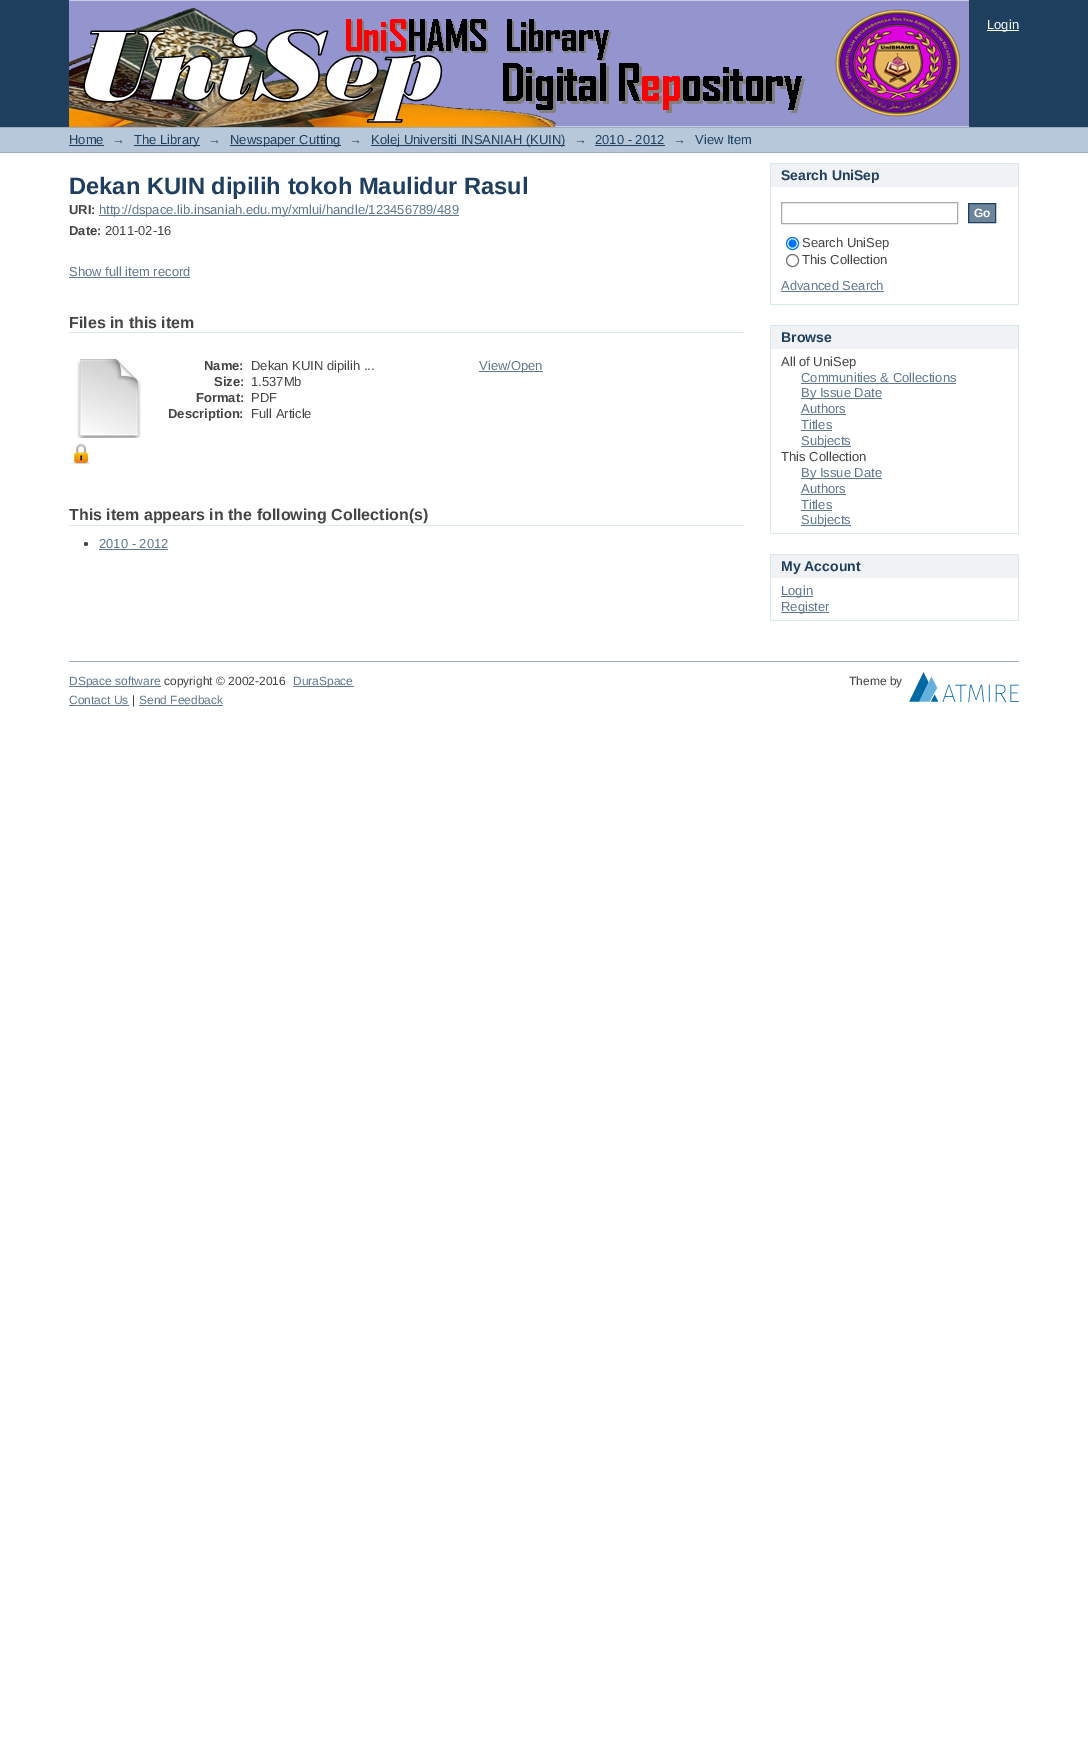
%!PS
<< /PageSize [1088 1747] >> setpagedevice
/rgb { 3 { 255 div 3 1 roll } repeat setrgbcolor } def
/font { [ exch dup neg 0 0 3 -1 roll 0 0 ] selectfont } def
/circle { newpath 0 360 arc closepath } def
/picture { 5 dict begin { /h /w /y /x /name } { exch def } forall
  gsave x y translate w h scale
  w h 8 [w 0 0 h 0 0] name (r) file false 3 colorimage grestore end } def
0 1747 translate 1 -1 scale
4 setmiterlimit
255 255 255 rgb
0 0 1088 1747 rectfill
31 63 94 rgb
0 0 1088 127 rectfill
(img/1.rgb) 69 0 900 127 picture
[
  [987 30 32 1 255 255 255]
  [0 128 1088 24 182 200 217]
  [0 127 1088 1 156 172 186]
  [0 152 1088 1 156 172 186]
  [69 145 35 1 31 63 94]
  [134 145 66 1 31 63 94]
  [230 145 111 1 31 63 94]
  [371 145 194 1 31 63 94]
  [595 145 70 1 31 63 94]
  [99 215 360 1 96 120 144]
  [69 277 121 1 96 120 144]
  [69 332 675 1 216 232 235]
] { aload pop rgb rectfill } forall
(img/2.rgb) 77 359 64 79 picture
(img/3.rgb) 72 443 18 21 picture
96 120 144 rgb
479 371 64 1 rectfill
216 232 235 rgb
69 525 675 1 rectfill
68 68 68 rgb
86 544 2 circle fill
[
  [99 549 69 1 96 120 144]
  [771 164 247 23 240 242 245]
  [770 163 249 1 216 232 235]
  [1018 163 1 142 216 232 235]
  [770 163 1 24 216 232 235]
  [770 304 249 1 216 232 235]
  [770 187 1 118 216 232 235]
] { aload pop rgb rectfill } forall
170 170 170 rgb
781.5 202.5 176 21 rectstroke
109 133 156 rgb
968.5 203.5 moveto 995.5 203.5 lineto 995.5 222.5 lineto 968.5 222.5 lineto closepath gsave fill grestore
31 63 94 rgb
stroke
0 117 255 rgb
792.5 243.5 6 circle stroke
792.5 243.5 4 circle fill
118 118 118 rgb
792.5 260.5 6 circle stroke
[
  [781 291 103 1 96 120 144]
  [771 326 247 23 240 242 245]
  [770 325 249 1 216 232 235]
  [1018 325 1 209 216 232 235]
  [770 325 1 24 216 232 235]
  [770 533 249 1 216 232 235]
  [770 349 1 185 216 232 235]
  [801 383 155 1 96 120 144]
  [801 398 81 1 96 120 144]
  [801 414 45 1 96 120 144]
  [801 430 31 1 96 120 144]
  [801 446 50 1 96 120 144]
  [801 478 81 1 96 120 144]
  [801 494 45 1 96 120 144]
  [801 510 31 1 96 120 144]
  [801 525 50 1 96 120 144]
  [771 555 247 23 240 242 245]
  [770 554 249 1 216 232 235]
  [1018 554 1 67 216 232 235]
  [770 554 1 24 216 232 235]
  [770 620 249 1 216 232 235]
  [770 578 1 43 216 232 235]
  [781 596 32 1 96 120 144]
  [781 612 48 1 96 120 144]
  [69 661 950 1 156 172 186]
  [69 686 92 1 96 120 144]
  [293 686 61 1 96 120 144]
] { aload pop rgb rectfill } forall
(img/4.rgb) 909 672 110 30 picture
69 705 60 1 rectfill
139 705 84 1 rectfill
/LiberationSans-Regular 13 font
255 255 255 rgb
987 29 moveto (Login) show
31 63 94 rgb
[
  [(Home) 69 144]
  [(→) 112 144]
  [(The Library) 134 144]
  [(→) 208 144]
  [(Newspaper Cutting) 230 144]
  [(→) 349 144]
  [(Kolej Universiti INSANIAH \(KUIN\)) 371 144]
  [(→) 574 144]
  [(2010 - 2012) 595 144]
  [(→) 673 144]
  [(View Item) 695 144]
] { aload pop moveto show } forall
/LiberationSans-Bold 23.7 font
69 194 moveto (Dekan KUIN dipilih tokoh Maulidur Rasul) show
/LiberationSans-Bold 13 font
68 68 68 rgb
69 214 moveto (URI:) show
/LiberationSans-Regular 13 font
96 120 144 rgb
99 214 moveto (http://dspace.lib.insaniah.edu.my/xmlui/handle/123456789/489) show
/LiberationSans-Bold 13 font
68 68 68 rgb
69 235 moveto (Date:) show
/LiberationSans-Regular 13 font
105 235 moveto (2011-02-16) show
96 120 144 rgb
69 276 moveto (Show full item record) show
/LiberationSans-Bold 16 font
68 68 68 rgb
69 328 moveto (Files in this item) show
/LiberationSans-Bold 13 font
204 370 moveto (Name:) show
/LiberationSans-Regular 13 font
251 370 moveto (Dekan KUIN dipilih ...) show
/LiberationSans-Bold 13 font
214 386 moveto (Size:) show
/LiberationSans-Regular 13 font
251 386 moveto (1.537Mb) show
/LiberationSans-Bold 13 font
196 402 moveto (Format:) show
/LiberationSans-Regular 13 font
251 402 moveto (PDF) show
/LiberationSans-Bold 13 font
168 418 moveto (Description:) show
/LiberationSans-Regular 13 font
251 418 moveto (Full Article) show
96 120 144 rgb
479 370 moveto (View/Open) show
/LiberationSans-Bold 16 font
68 68 68 rgb
69 520 moveto (This item appears in the following Collection\(s\)) show
/LiberationSans-Regular 13 font
96 120 144 rgb
99 548 moveto (2010 - 2012) show
/LiberationSans-Bold 14 font
31 63 94 rgb
781 180 moveto (Search UniSep) show
/LiberationSans-Bold 12 font
255 255 255 rgb
974 217 moveto (Go) show
/LiberationSans-Regular 13 font
68 68 68 rgb
802 247 moveto (Search UniSep) show
802 264 moveto (This Collection) show
96 120 144 rgb
781 290 moveto (Advanced Search) show
/LiberationSans-Bold 14 font
31 63 94 rgb
781 342 moveto (Browse) show
/LiberationSans-Regular 13 font
68 68 68 rgb
781 366 moveto (All of UniSep) show
96 120 144 rgb
[
  [(Communities & Collections) 801 382]
  [(By Issue Date) 801 397]
  [(Authors) 801 413]
  [(Titles) 801 429]
  [(Subjects) 801 445]
] { aload pop moveto show } forall
68 68 68 rgb
781 461 moveto (This Collection) show
96 120 144 rgb
[
  [(By Issue Date) 801 477]
  [(Authors) 801 493]
  [(Titles) 801 509]
  [(Subjects) 801 524]
] { aload pop moveto show } forall
/LiberationSans-Bold 14 font
31 63 94 rgb
781 571 moveto (My Account) show
/LiberationSans-Regular 13 font
96 120 144 rgb
781 595 moveto (Login) show
781 611 moveto (Register) show
/LiberationSans-Regular 12 font
69 685 moveto (DSpace software) show
68 68 68 rgb
164 685 moveto (copyright © 2002-2016) show
96 120 144 rgb
293 685 moveto (DuraSpace) show
68 68 68 rgb
849 685 moveto (Theme by) show
96 120 144 rgb
69 704 moveto (Contact Us) show
68 68 68 rgb
132 704 moveto (|) show
96 120 144 rgb
139 704 moveto (Send Feedback) show
showpage
